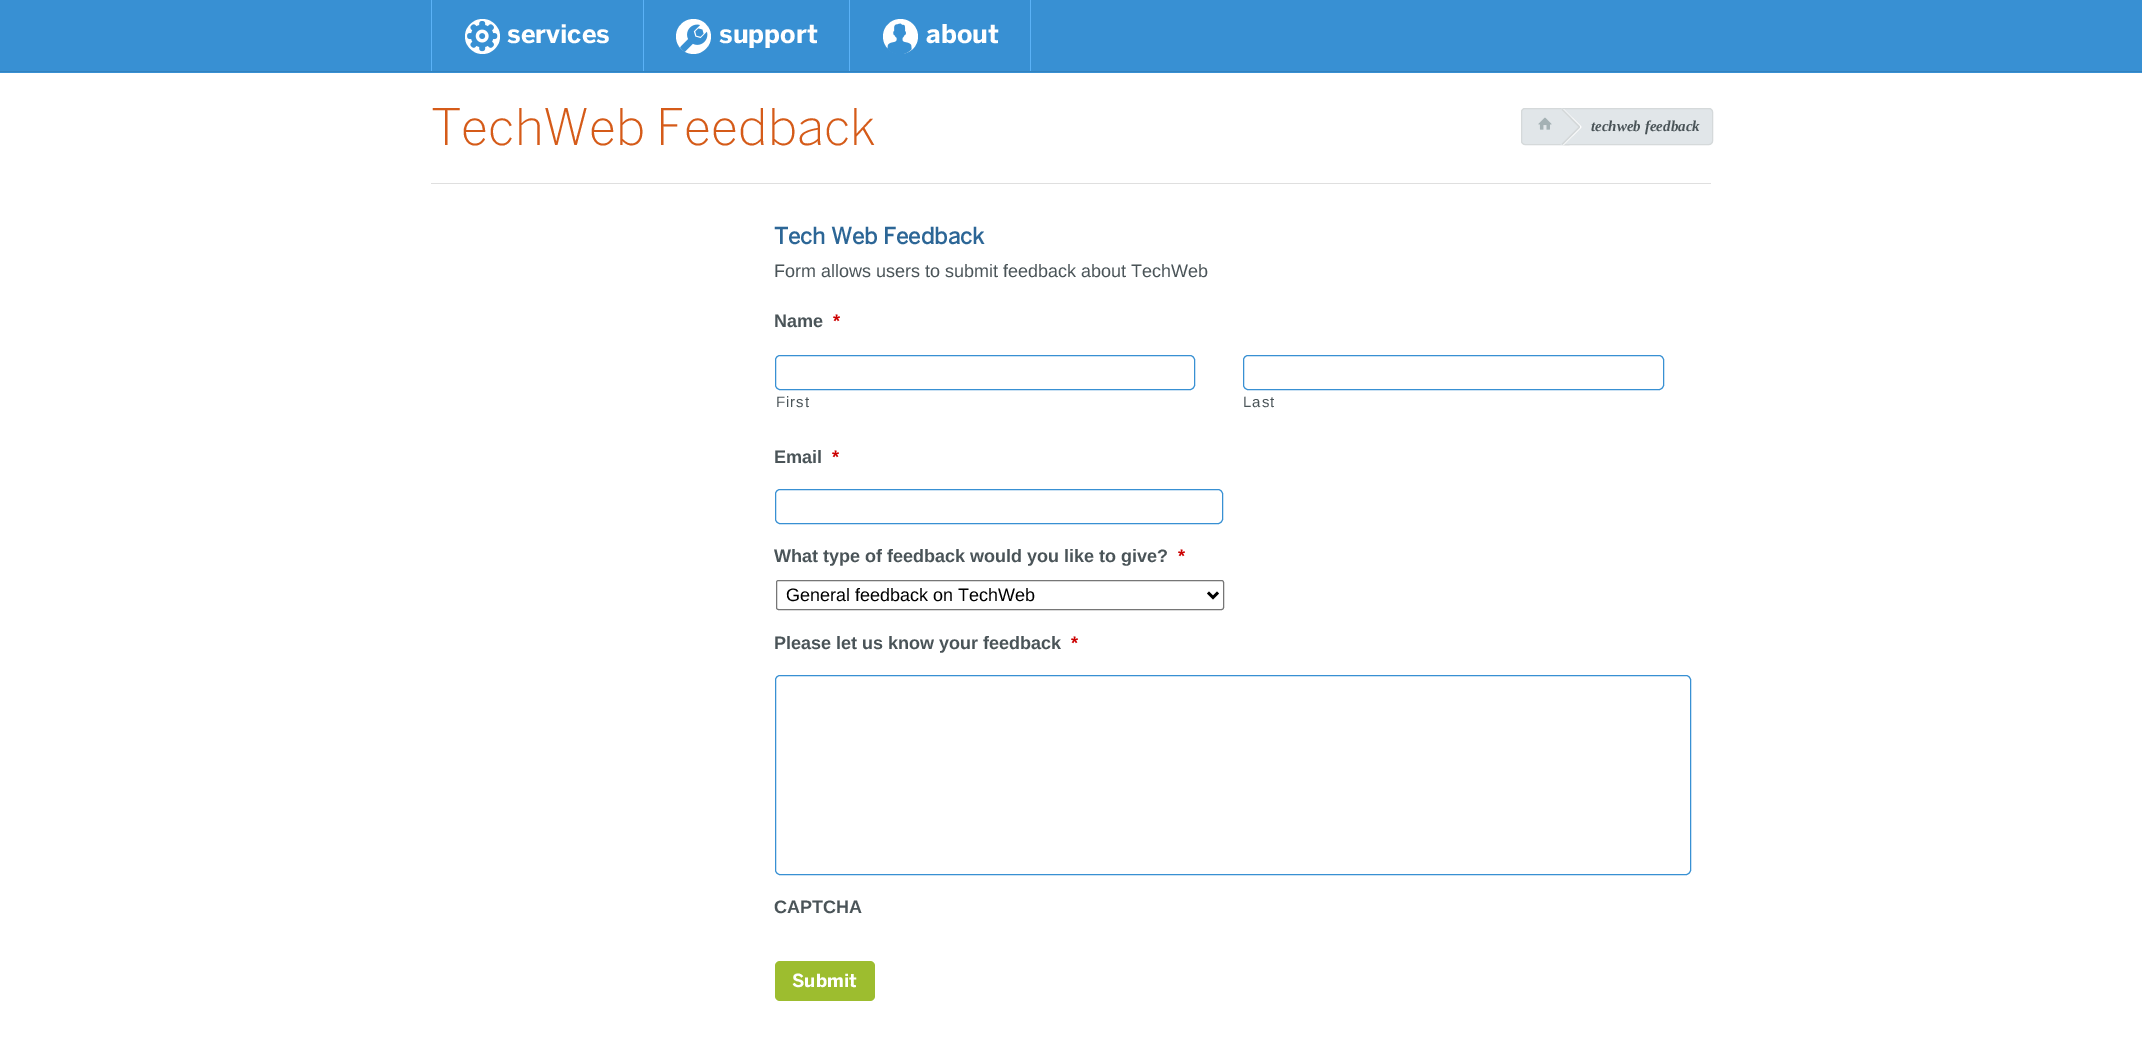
%!PS
<< /PageSize [2142 1043] >> setpagedevice
/rgb { 3 { 255 div 3 1 roll } repeat setrgbcolor } def
/font { [ exch dup neg 0 0 3 -1 roll 0 0 ] selectfont } def
/circle { newpath 0 360 arc closepath } def
/roundrect { 5 dict begin { /r /h /w /y /x } { exch def } forall
  x r add y moveto x w add y 2 copy h add r arct x w add y h add x 1 index r arct
  x y h add x y r arct x y 2 copy exch w add exch r arct closepath end } def
/picture { 5 dict begin { /h /w /y /x /name } { exch def } forall
  gsave x y translate w h scale
  w h 8 [w 0 0 h 0 0] name (r) file false 3 colorimage grestore end } def
0 1043 translate 1 -1 scale
4 setmiterlimit
56 144 211 rgb
0 0 2142 1043 rectfill
[
  [0 71 2142 1 50 130 190]
  [431 0 1 71 91 178 247]
  [643 0 1 71 91 178 247]
] { aload pop rgb rectfill } forall
255 255 255 rgb
482.5 36.5 17.5 circle fill
(img/1.rgb) 467 21 31 31 picture
91 178 247 rgb
849 0 1 71 rectfill
255 255 255 rgb
693.5 36.5 17.5 circle fill
(img/2.rgb) 680 24 28 28 picture
91 178 247 rgb
1030 0 1 71 rectfill
255 255 255 rgb
900.5 36.5 17.5 circle fill
(img/3.rgb) 887 23 25 31 picture
0 73 2142 970 rectfill
225 230 233 rgb
1521.5 108.5 51 36 3.5 roundrect gsave fill grestore
213 217 218 rgb
stroke
225 230 233 rgb
1560.5 108.5 152 36 3.5 roundrect gsave fill grestore
213 217 218 rgb
stroke
255 255 255 rgb
1563.5 109 moveto 1581.5 126.5 lineto 1580.5 127.5 lineto 1562.5 109.5 lineto closepath fill
1580.5 126.5 moveto 1581.5 127.5 lineto 1563.5 145 lineto 1562.5 144 lineto closepath fill
225 230 233 rgb
1563 109 moveto 1579.5 126 lineto 1580 126.5 1580 127.5 1579.5 128 curveto 1563 144.5 lineto 1562.5 145 1561.5 145 1561 144.5 curveto 1544 128 lineto 1543.5 127.5 1543.5 126.5 1544 126 curveto 1561 109 lineto 1561.5 108.5 1562.5 108.5 1563 109 curveto closepath fill
213 217 218 rgb
1562.5 109 moveto 1580 126.5 lineto 1579 127.5 lineto 1561.5 109.5 lineto closepath fill
1579 126.5 moveto 1580 127.5 lineto 1562.5 145 lineto 1561.5 144 lineto closepath fill
(img/4.rgb) 1538 117 14 13 picture
223 223 223 rgb
431 183 1280 1 rectfill
56 144 211 rgb
775.5 355.5 419 34 4.5 roundrect stroke
1243.5 355.5 420 34 4.5 roundrect stroke
775.5 489.5 447 34 4.5 roundrect stroke
118 118 118 rgb
776.5 580.5 447 29 2 roundrect stroke
0 0 0 rgb
2.5 setlinewidth
1208 592.5 moveto 1213 597.5 lineto 1218 592.5 lineto stroke
56 144 211 rgb
1 setlinewidth
775.5 675.5 915 199 4.5 roundrect stroke
157 189 47 rgb
775 961 100 40 5 roundrect fill
/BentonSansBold-Bold 25.5 font
255 255 255 rgb
[
  [(services) 507 43]
  [(support) 719 43]
  [(about) 926 43]
] { aload pop moveto show } forall
/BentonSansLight-Light 50 font
213 91 25 rgb
431 145 moveto (TechWeb Feedback) show
/LiberationSerif-BoldItalic 15 font
74 84 88 rgb
1591 131 moveto (techweb feedback) show
/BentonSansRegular-Bold 22.5 font
44 102 150 rgb
774 244 moveto (Tech Web Feedback) show
/LiberationSans-Regular 18 font
74 84 88 rgb
774 277 moveto (Form allows users to submit feedback about TechWeb) show
/LiberationSans-Bold 18 font
774 327 moveto (Name) show
204 0 0 rgb
833 327 moveto (*) show
/LiberationSans-Regular 15 font
74 84 88 rgb
776 407 moveto 1 0 (First) ashow
1243 407 moveto 1 0 (Last) ashow
/LiberationSans-Bold 18 font
774 463 moveto (Email) show
204 0 0 rgb
832 463 moveto (*) show
74 84 88 rgb
774 562 moveto (What type of feedback would you like to give?) show
204 0 0 rgb
1178 562 moveto (*) show
/LiberationSans-Regular 18 font
0 0 0 rgb
786 601 moveto (General feedback on TechWeb) show
/LiberationSans-Bold 18 font
74 84 88 rgb
774 649 moveto (Please let us know your feedback) show
204 0 0 rgb
1071 649 moveto (*) show
74 84 88 rgb
774 913 moveto (CAPTCHA) show
/BentonSansBold-Bold 18 font
255 255 255 rgb
792 987 moveto (Submit) show
showpage
